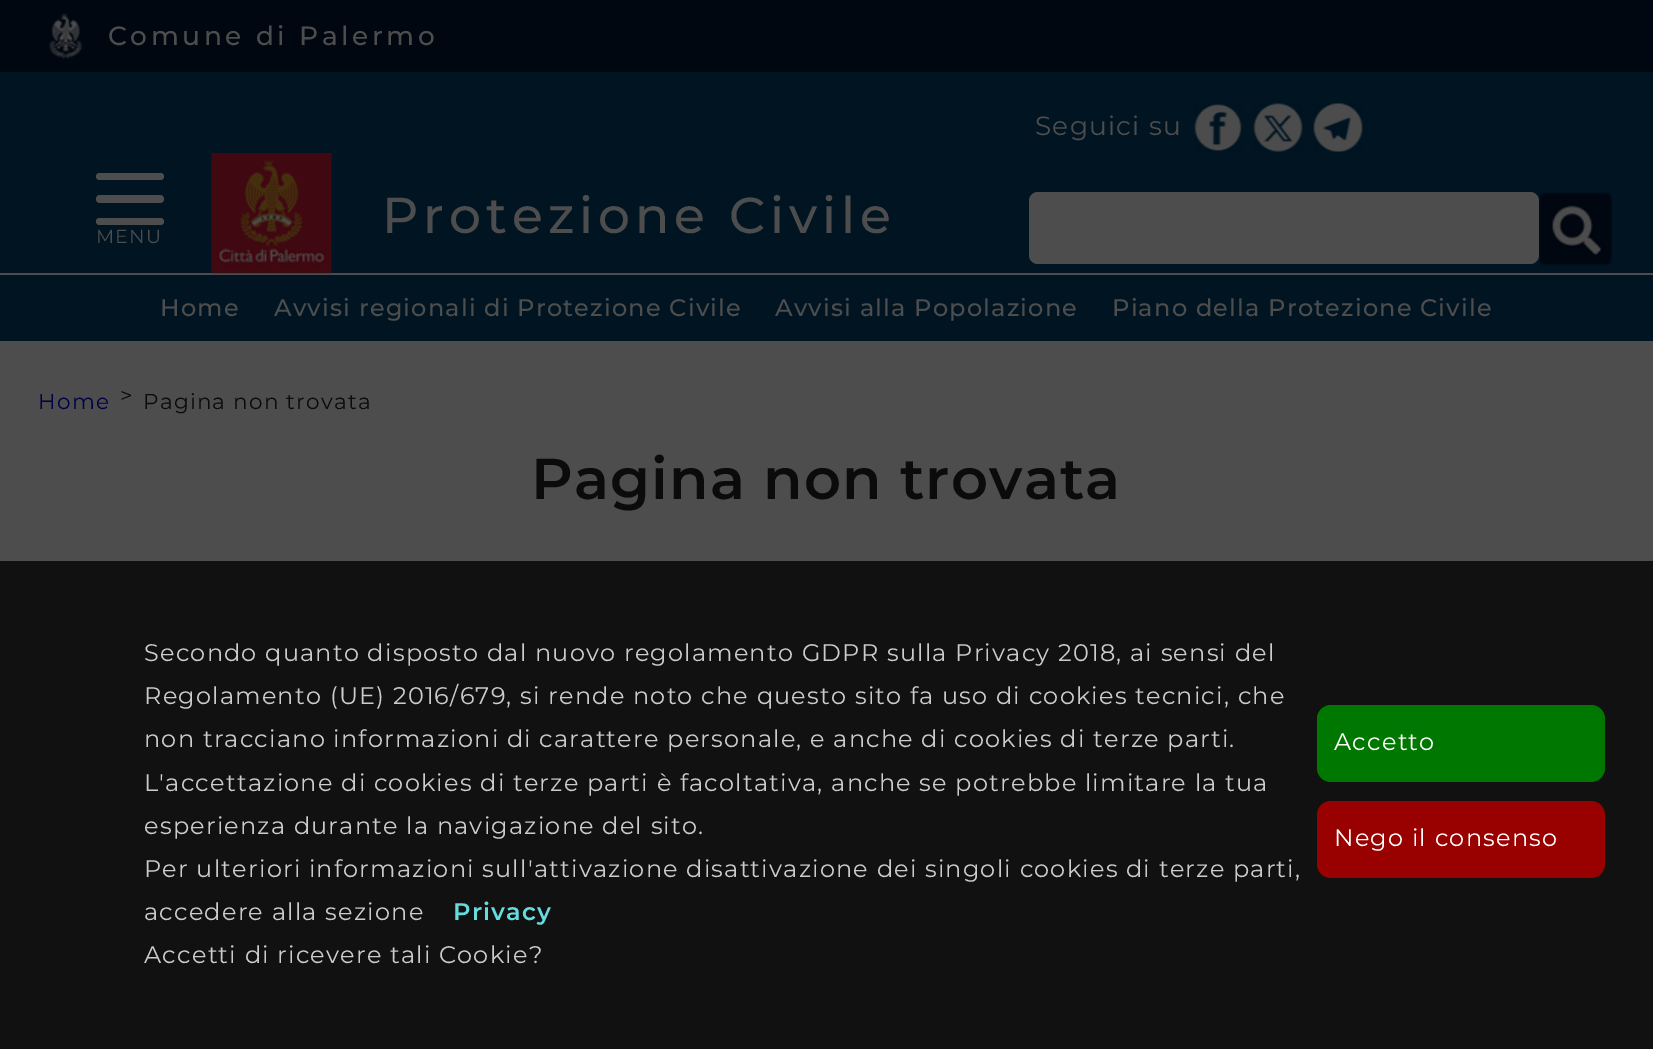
%!PS
<< /PageSize [1653 1049] >> setpagedevice
/rgb { 3 { 255 div 3 1 roll } repeat setrgbcolor } def
/font { [ exch dup neg 0 0 3 -1 roll 0 0 ] selectfont } def
/roundrect { 5 dict begin { /r /h /w /y /x } { exch def } forall
  x r add y moveto x w add y 2 copy h add r arct x w add y h add x 1 index r arct
  x y h add x y r arct x y 2 copy exch w add exch r arct closepath end } def
/picture { 5 dict begin { /h /w /y /x /name } { exch def } forall
  gsave x y translate w h scale
  w h 8 [w 0 0 h 0 0] name (r) file false 3 colorimage grestore end } def
0 1049 translate 1 -1 scale
4 setmiterlimit
77 77 77 rgb
0 0 1653 1049 rectfill
0 20 33 rgb
0 72 1653 269 rectfill
0 7 17 rgb
0 0 1653 72 rectfill
(img/1.rgb) 49 13 34 46 picture
(img/2.rgb) 1194 104 48 48 picture
(img/3.rgb) 1253 103 50 49 picture
(img/4.rgb) 1313 103 50 49 picture
77 77 77 rgb
0 273 1653 2 rectfill
(img/5.rgb) 211 153 121 121 picture
1029 192 510 72 9 roundrect fill
(img/6.rgb) 1539 192 74 74 picture
96 173 68 7 3.5 roundrect fill
96 195 68 8 4 roundrect fill
96 218 68 7 3.5 roundrect fill
17 17 17 rgb
0 561 1653 488 rectfill
0 119 0 rgb
1317 705 288 77 14 roundrect fill
153 0 0 rgb
1317 801 288 77 14 roundrect fill
/Montserrat-Medium 26.4 font
77 77 77 rgb
108 45 moveto 3.6 0 (Comune di Palermo) ashow
/Montserrat-Regular 26.4 font
1035 135 moveto 1.2 0 (Seguici su) ashow
/Montserrat-Medium 50.4 font
382 233 moveto 5 0 (Protezione Civile) ashow
/Montserrat-Regular 19 font
96 243 moveto 1.2 0 (MENU) ashow
/Montserrat-Medium 24 font
160 316 moveto 1.2 0 (Home) ashow
274 316 moveto 1.2 0 (Avvisi regionali di Protezione Civile) ashow
775 316 moveto 1.2 0 (Avvisi alla Popolazione) ashow
1112 316 moveto 1.2 0 (Piano della Protezione Civile) ashow
/Montserrat-Regular 21.6 font
0 0 71 rgb
38 409 moveto 1.2 0 (Home) ashow
11 11 11 rgb
120 403 moveto 1.2 0 (>) ashow
143 409 moveto 1.2 0 (Pagina non trovata) ashow
/Montserrat-SemiBold 57.6 font
531 499 moveto 1.2 0 (Pagina non trovata) ashow
/Montserrat-Regular 24 font
204 204 204 rgb
144 661 moveto 1.2 0 (Secondo quanto disposto dal nuovo regolamento GDPR sulla Privacy 2018, ai sensi del) ashow
144 704 moveto 1.2 0 (Regolamento \(UE\) 2016/679, si rende noto che questo sito fa uso di cookies tecnici, che) ashow
144 747 moveto 1.2 0 (non tracciano informazioni di carattere personale, e anche di cookies di terze parti.) ashow
255 255 255 rgb
1334 750 moveto 1.2 0 (Accetto) ashow
204 204 204 rgb
144 791 moveto 1.2 0 (L'accettazione di cookies di terze parti è facoltativa, anche se potrebbe limitare la tua) ashow
144 834 moveto 1.2 0 (esperienza durante la navigazione del sito.) ashow
255 255 255 rgb
1334 846 moveto 1.2 0 (Nego il consenso) ashow
204 204 204 rgb
144 877 moveto 1.2 0 (Per ulteriori informazioni sull'attivazione disattivazione dei singoli cookies di terze parti,) ashow
144 920 moveto 1.2 0 (accedere alla sezione) ashow
/Montserrat-SemiBold 24 font
101 221 223 rgb
453 920 moveto 1.2 0 (Privacy) ashow
/Montserrat-Regular 24 font
204 204 204 rgb
144 963 moveto 1.2 0 (Accetti di ricevere tali Cookie?) ashow
showpage
